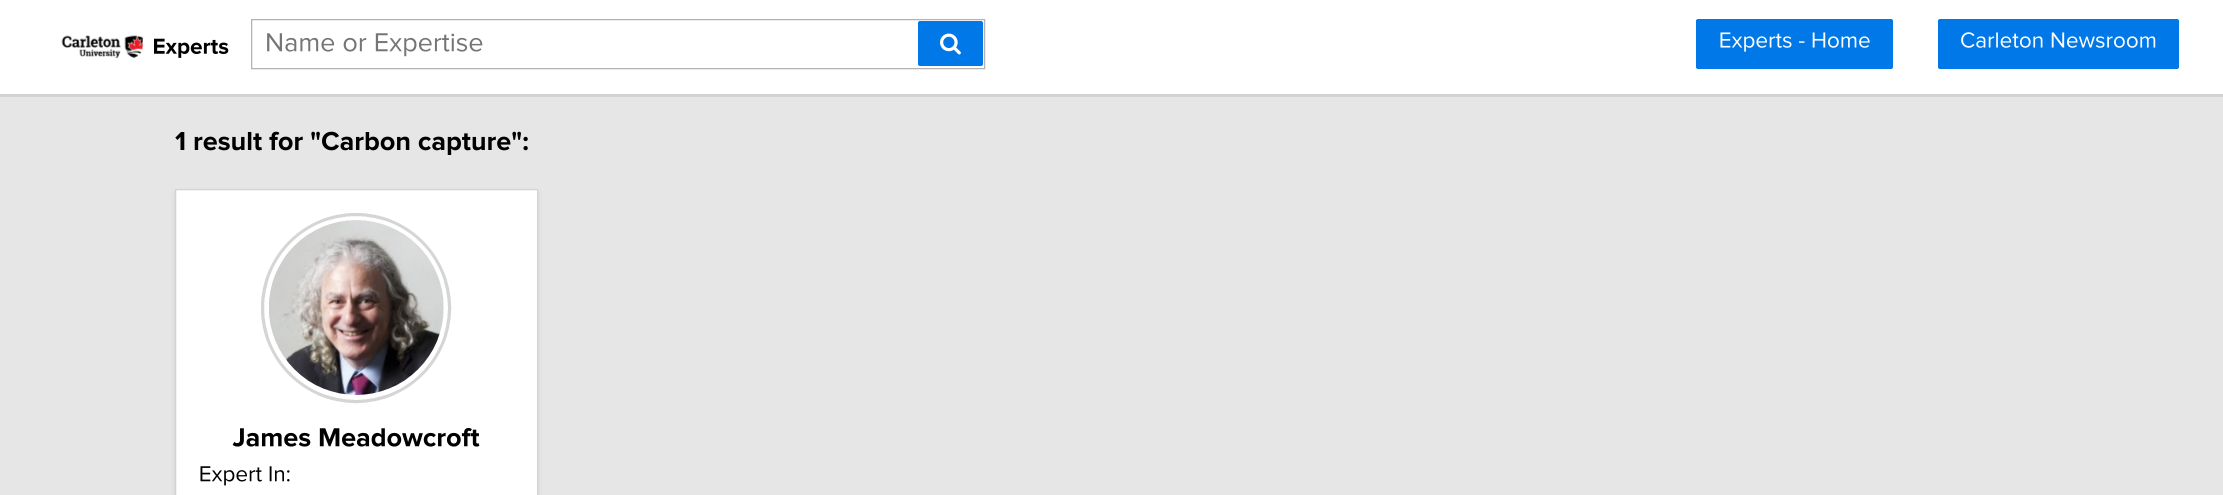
%!PS
<< /PageSize [2223 495] /PageUsesTransparency true >> setpagedevice
/rgb { 3 { 255 div 3 1 roll } repeat setrgbcolor } def
/alpha { dup .setfillconstantalpha .setstrokeconstantalpha } def
/circle { newpath 0 360 arc closepath } def
/roundrect { 5 dict begin { /r /h /w /y /x } { exch def } forall
  x r add y moveto x w add y 2 copy h add r arct x w add y h add x 1 index r arct
  x y h add x y r arct x y 2 copy exch w add exch r arct closepath end } def
/shadow { 12 dict begin { /a /b /q /h /w /y /x } { exch def } forall gsave /was 0 def
  9 -2 -9 { dup b mul 4 div /e exch def 1 sub .425 mul 2.718 exch exp 1 add a .99 .min exch div /now exch def
    1 1 now sub 1 was sub div sub alpha /was now def
    w h .min e 2 mul add 0 gt { x e sub y e sub w e 2 mul add h e 2 mul add
      q e add b .6 mul add w h .min 2 div e add .min 0 .max roundrect fill } if } for grestore end } def
/picture { 5 dict begin { /h /w /y /x /name } { exch def } forall
  gsave x y translate w h scale
  w h 8 [w 0 0 h 0 0] name (r) file false 3 colorimage grestore end } def
0 .pushpdf14devicefilter
0 495 translate 1 -1 scale
4 setmiterlimit
230 230 230 rgb
0 0 2223 495 rectfill
255 255 255 rgb
0 0 2223 94 rectfill
211 211 211 rgb
0 94 2223 3 rectfill
(img/1.rgb) 61 35 82 23 picture
(img/2.rgb) 154 38 75 20 picture
179 179 179 rgb
251.5 19.5 733 49 rectstroke
(img/3.rgb) 267 33 216 24 picture
0 120 231 rgb
918 21 65 45 2.5 roundrect fill
(img/4.rgb) 940 33 21 22 picture
1696 19 197 50 2.5 roundrect fill
(img/5.rgb) 1720 32 150 20 picture
1938 19 241 50 2.5 roundrect fill
(img/6.rgb) 1961 32 195 16 picture
(img/7.rgb) 175 131 353 24 picture
0 0 0 rgb
175 193 363 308 0 2 0.09 shadow
255 255 255 rgb
175.5 189.5 moveto 537.5 189.5 lineto 537.5 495.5 lineto 175.5 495.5 lineto closepath gsave fill grestore
211 211 211 rgb
stroke
213 213 213 rgb
3 setlinewidth
356 308 93.5 circle stroke
(img/8.rgb) 269 220 175 175 picture
(img/9.rgb) 232 428 248 19 picture
(img/10.rgb) 200 466 90 20 picture
.poppdf14devicefilter showpage
